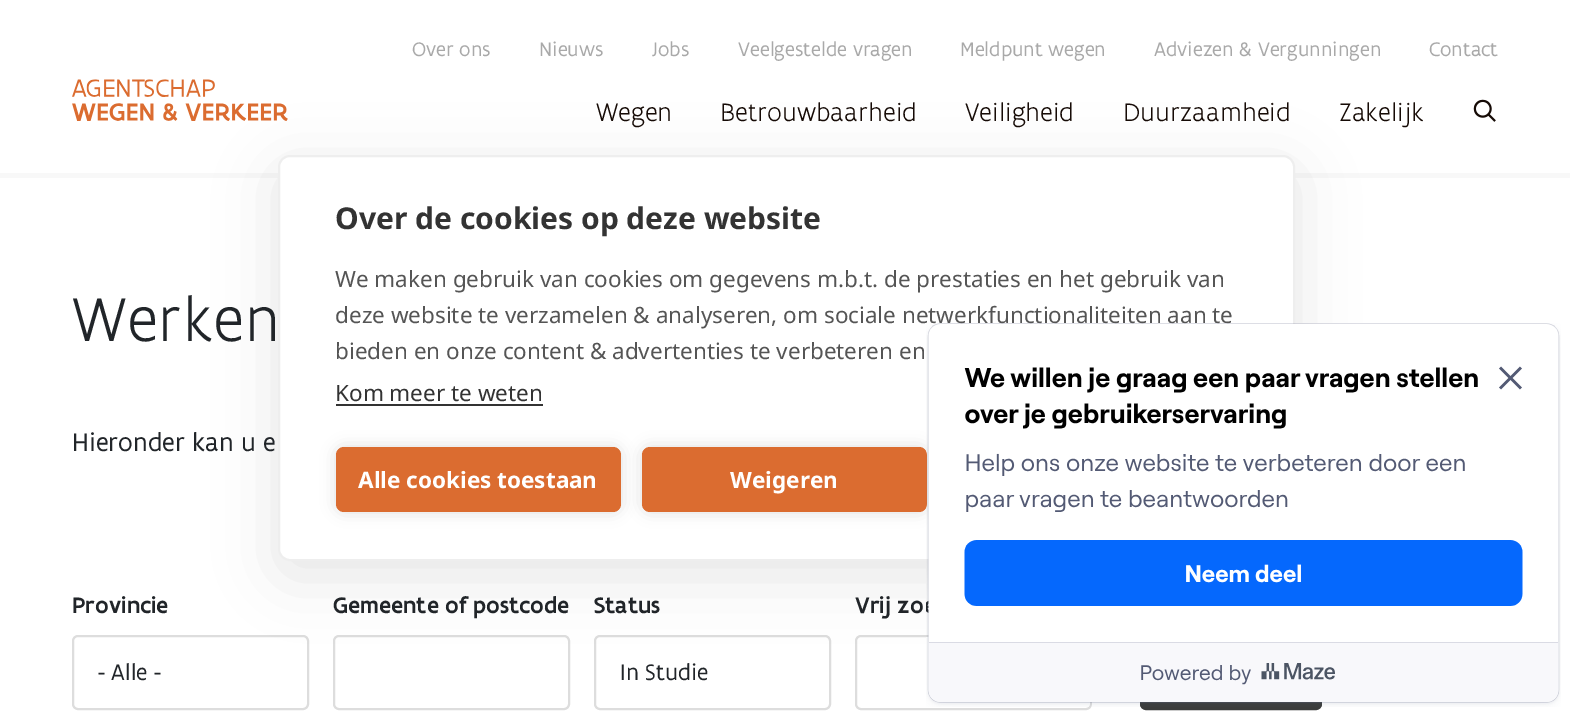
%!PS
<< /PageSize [1570 714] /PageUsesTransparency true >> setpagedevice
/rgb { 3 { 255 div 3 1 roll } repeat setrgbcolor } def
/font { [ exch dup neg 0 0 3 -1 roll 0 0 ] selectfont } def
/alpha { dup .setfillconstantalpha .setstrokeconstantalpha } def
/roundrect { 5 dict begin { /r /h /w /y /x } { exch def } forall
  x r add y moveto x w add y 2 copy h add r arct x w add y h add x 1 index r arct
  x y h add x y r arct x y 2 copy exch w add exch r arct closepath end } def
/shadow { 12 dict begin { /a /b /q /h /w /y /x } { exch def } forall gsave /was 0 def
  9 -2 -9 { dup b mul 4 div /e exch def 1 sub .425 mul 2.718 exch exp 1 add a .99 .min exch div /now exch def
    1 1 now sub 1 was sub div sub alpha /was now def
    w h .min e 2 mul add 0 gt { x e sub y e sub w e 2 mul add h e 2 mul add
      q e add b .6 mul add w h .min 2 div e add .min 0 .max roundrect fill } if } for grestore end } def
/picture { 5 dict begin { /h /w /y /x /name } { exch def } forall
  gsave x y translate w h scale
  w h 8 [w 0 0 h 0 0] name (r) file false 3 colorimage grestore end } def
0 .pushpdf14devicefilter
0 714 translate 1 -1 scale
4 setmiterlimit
255 255 255 rgb
0 0 1570 714 rectfill
(img/1.rgb) 72 79 216 42 picture
(img/2.rgb) 1473 99 23 23 picture
248 248 248 rgb
0 173 1570 5 rectfill
221 221 221 rgb
2 setlinewidth
73 636 235 73 5 roundrect stroke
334 636 235 73 5 roundrect stroke
595 636 235 73 5 roundrect stroke
856 636 235 73 5 roundrect stroke
60 61 60 rgb
1141 636 180 73 5 roundrect gsave fill grestore
stroke
0 0 0 rgb
278 170 1017 406 12 30 0.1 shadow
255 255 255 rgb
279 156 1015 404 11 roundrect gsave fill grestore
238 238 238 rgb
stroke
51 51 51 rgb
336 404 207 2 rectfill
0 0 0 rgb
336 447 285 65 8 7.5 0.12 shadow
219 108 48 rgb
336 447 285 65 8 roundrect fill
0 0 0 rgb
642 447 285 65 8 7.5 0.12 shadow
219 108 48 rgb
642 447 285 65 8 roundrect fill
/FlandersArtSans-Regular 21 font
169 169 169 rgb
[
  [(Over ons) 412 56]
  [(Nieuws) 539 56]
  [(Jobs) 651 56]
  [(Veelgestelde vragen) 738 56]
  [(Meldpunt wegen) 960 56]
  [(Adviezen & Vergunningen) 1154 56]
  [(Contact) 1429 56]
] { aload pop moveto show } forall
/FlandersArtSans-Light 27 font
22 11 6 rgb
[
  [(Wegen) 596 121]
  [(Betrouwbaarheid) 720 121]
  [(Veiligheid) 965 121]
  [(Duurzaamheid) 1123 121]
  [(Zakelijk) 1339 121]
] { aload pop moveto show } forall
/FlandersArtSans-Light 66 font
33 37 41 rgb
72 341 moveto (Werken) show
/FlandersArtSans-Regular 27 font
72 451 moveto (Hieronder kan u e) show
/FlandersArtSans-Medium 24 font
72 613 moveto (Provincie) show
/FlandersArtSans-Regular 24 font
98 680 moveto (- Alle -) show
/FlandersArtSans-Medium 24 font
333 613 moveto (Gemeente of postcode) show
594 613 moveto (Status) show
/FlandersArtSans-Regular 24 font
620 680 moveto (In Studie) show
/FlandersArtSans-Medium 24 font
855 613 moveto (Vrij zo) show
/NotoSans-Bold 30 font
51 51 51 rgb
335 229 moveto (Over de cookies op deze website) show
/NotoSans-Regular 22.5 font
85 85 85 rgb
[
  [(We maken gebruik van cookies om gegevens m.b.t. de prestaties en het gebruik van) 335 287]
  [(deze website te verzamelen & analyseren, om sociale netwerkfunctionaliteiten aan te) 335 323]
  [(bieden en onze content & advertenties te verbeteren en) 335 359]
] { aload pop moveto show } forall
51 51 51 rgb
335 401 moveto (Kom meer te weten) show
/NotoSans-Bold 22.5 font
255 255 255 rgb
358 488 moveto (Alle cookies toestaan) show
730 488 moveto (Weigeren) show
(img/3.rgb) 926 323 635 384 picture
.poppdf14devicefilter showpage
